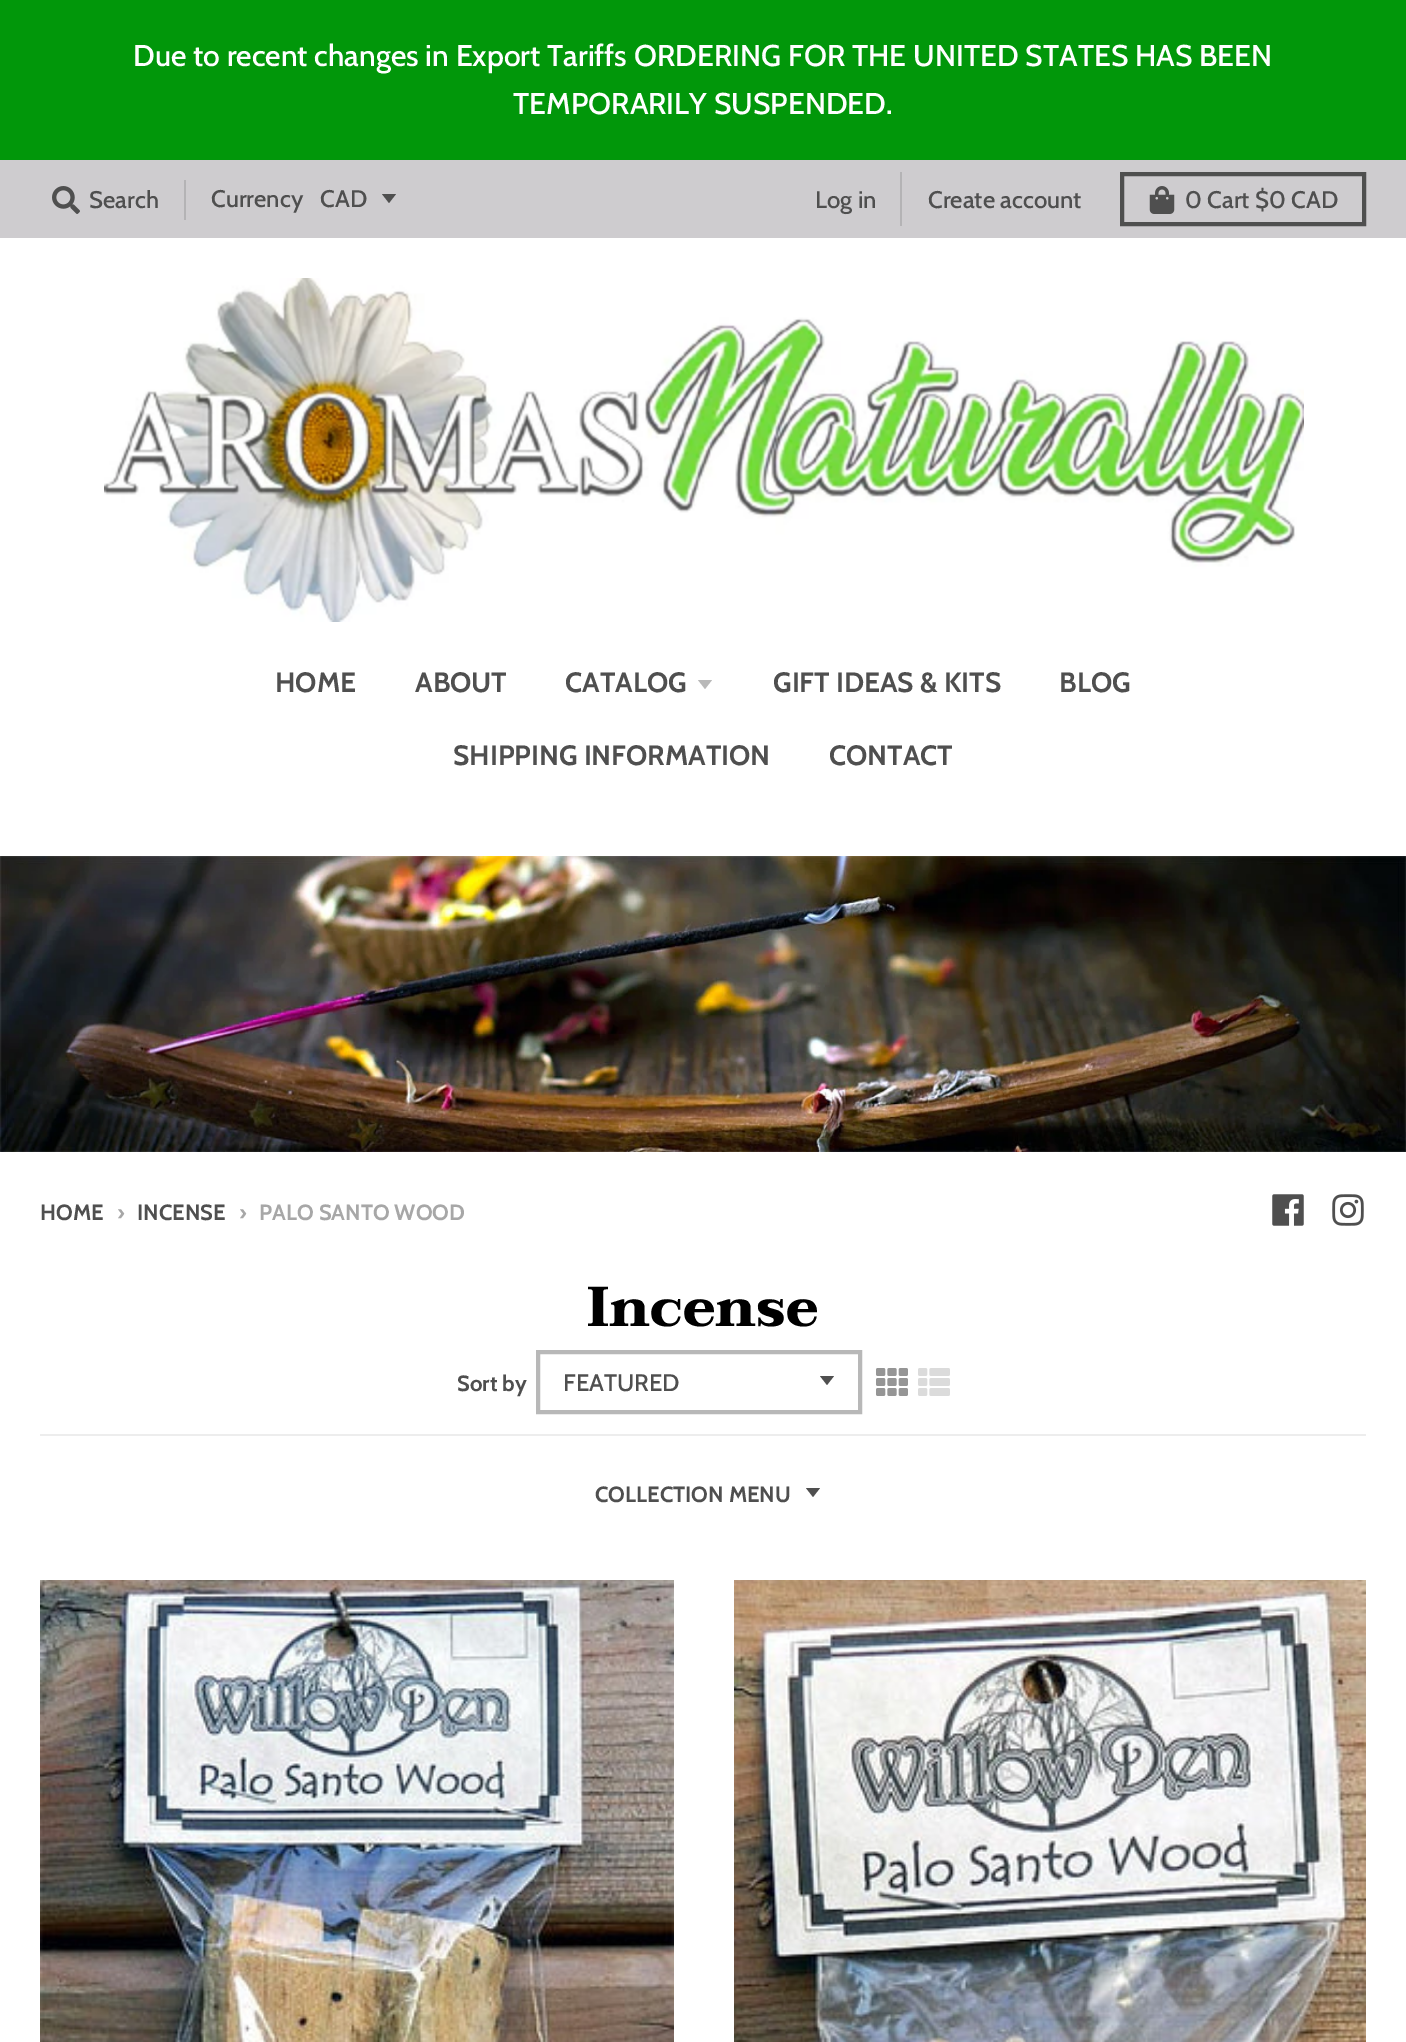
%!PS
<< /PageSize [1406 2042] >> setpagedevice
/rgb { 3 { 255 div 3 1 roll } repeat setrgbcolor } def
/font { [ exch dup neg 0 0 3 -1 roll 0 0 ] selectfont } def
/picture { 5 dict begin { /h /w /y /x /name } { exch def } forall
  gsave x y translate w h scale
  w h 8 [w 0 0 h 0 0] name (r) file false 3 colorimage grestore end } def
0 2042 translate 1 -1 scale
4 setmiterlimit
255 255 255 rgb
0 0 1406 2042 rectfill
1 151 10 rgb
0 0 1406 160 rectfill
206 204 207 rgb
0 160 1406 78 rectfill
(img/1.rgb) 52 186 28 28 picture
180 179 181 rgb
184 180 2 40 rectfill
79 79 79 rgb
382 194 moveto 389 203 lineto 396 194 lineto closepath fill
180 179 181 rgb
900 172 2 54 rectfill
79 79 79 rgb
4 setlinewidth
1122 174 242 50 rectstroke
(img/2.rgb) 1149 186 26 28 picture
(img/3.rgb) 104 278 1200 344 picture
185 185 185 rgb
698 680 moveto 705 689 lineto 712 680 lineto closepath fill
(img/4.rgb) 0 856 1406 296 picture
(img/5.rgb) 1272 1194 32 32 picture
(img/6.rgb) 1332 1194 32 32 picture
237 237 237 rgb
40 1434 1326 2 rectfill
79 79 79 rgb
820 1376 moveto 827 1385 lineto 834 1376 lineto closepath fill
184 184 184 rgb
538 1352 322 60 rectstroke
(img/7.rgb) 876 1368 32 28 picture
(img/8.rgb) 918 1368 32 28 picture
79 79 79 rgb
806 1488 moveto 813 1497 lineto 820 1488 lineto closepath fill
(img/9.rgb) 40 1580 634 462 picture
(img/10.rgb) 734 1580 632 462 picture
/Cabin-Medium 30 font
255 255 255 rgb
133 66 moveto (Due to recent changes in Export Tariffs ORDERING FOR THE UNITED STATES HAS BEEN) show
513 114 moveto (TEMPORARILY SUSPENDED.) show
/Cabin-Medium 24 font
79 79 79 rgb
[
  [(Search) 89 208]
  [(Currency) 211 207]
  [(CAD) 320 207]
  [(Log in) 815 208]
  [(Create account) 928 208]
  [(0 Cart $0 CAD) 1185 208]
] { aload pop moveto show } forall
/Cabin-Bold 28 font
[
  [(HOME) 275 692]
  [(ABOUT) 415 692]
  [(CATALOG) 565 692]
  [(GIFT IDEAS & KITS) 773 692]
  [(BLOG) 1059 692]
  [(SHIPPING INFORMATION) 453 765]
  [(CONTACT) 829 765]
] { aload pop moveto show } forall
/Cabin-Bold 22 font
40 1220 moveto (HOME) show
167 167 167 rgb
117 1220 moveto (›) show
79 79 79 rgb
137 1220 moveto (INCENSE) show
167 167 167 rgb
239 1220 moveto (›) show
259 1220 moveto (PALO SANTO WOOD) show
/Taviraj-Bold 56 font
0 0 0 rgb
587 1326 moveto (Incense) show
/Cabin-Bold 22 font
79 79 79 rgb
457 1391 moveto (Sort by) show
/Cabin-Medium 24 font
563 1391 moveto (FEATURED) show
/Cabin-Bold 22 font
595 1502 moveto (COLLECTION MENU) show
showpage
